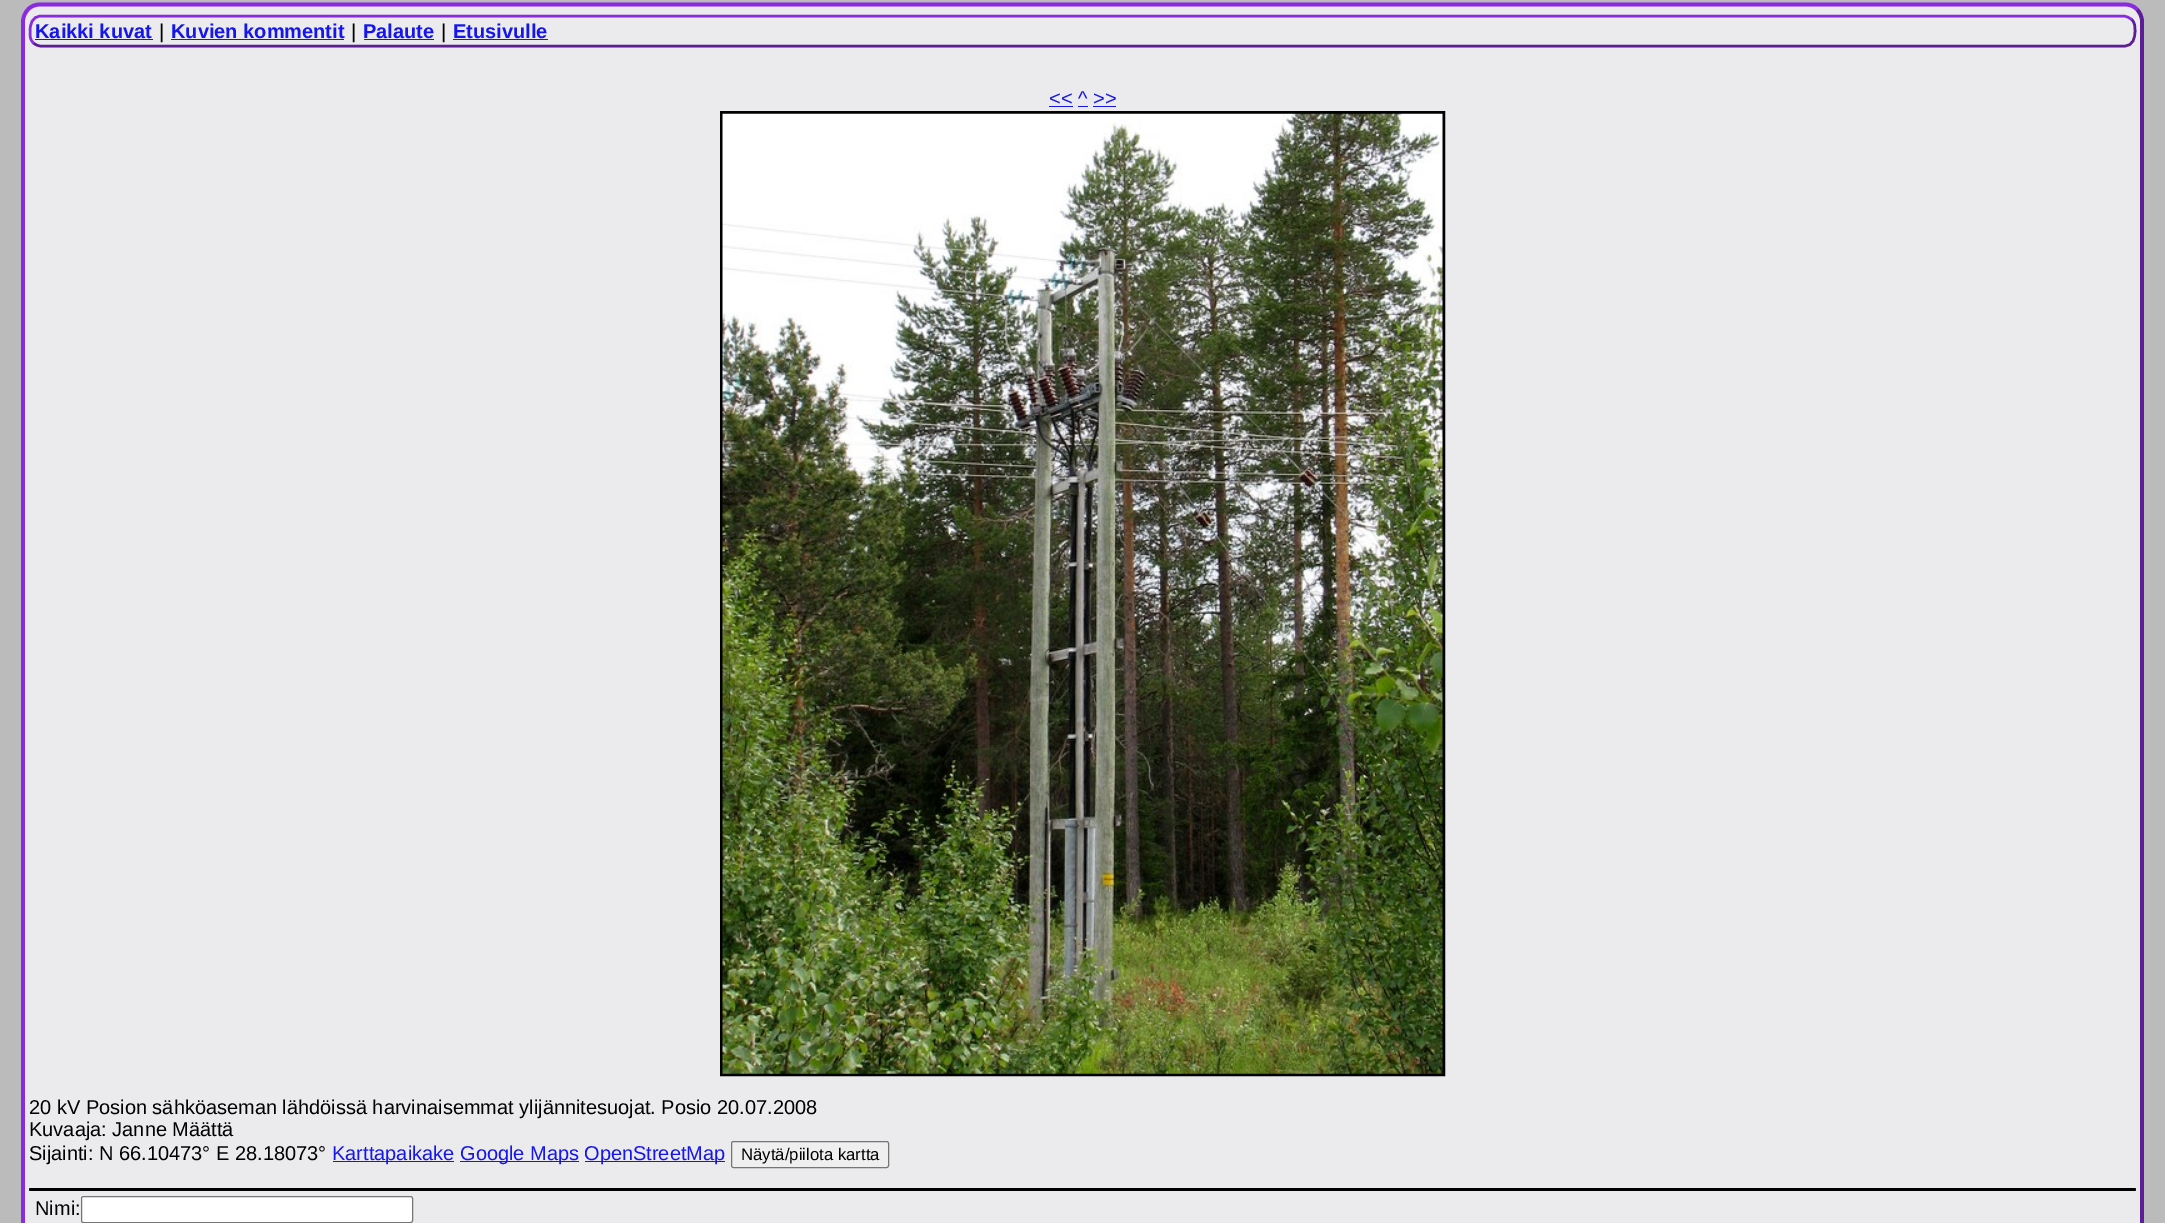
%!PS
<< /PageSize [2165 1223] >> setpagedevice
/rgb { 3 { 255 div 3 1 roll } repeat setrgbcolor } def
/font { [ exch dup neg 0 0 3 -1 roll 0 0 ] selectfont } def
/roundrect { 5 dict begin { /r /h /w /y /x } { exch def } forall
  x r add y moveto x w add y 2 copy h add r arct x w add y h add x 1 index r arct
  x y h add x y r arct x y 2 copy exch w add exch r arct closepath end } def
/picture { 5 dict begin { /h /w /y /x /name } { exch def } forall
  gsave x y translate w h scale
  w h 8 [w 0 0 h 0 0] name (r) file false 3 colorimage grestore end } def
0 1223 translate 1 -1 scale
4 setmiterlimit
187 187 187 rgb
0 0 2165 1223 rectfill
235 234 237 rgb
21 3 2123 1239 19 roundrect fill
92 29 151 rgb
3.8 setlinewidth
2137 9.5 moveto 2140 12.5 2142 17 2142 21 curveto 2142 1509 lineto 2142 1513 2140 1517.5 2137 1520.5 curveto 2134 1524 2129.5 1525.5 2125 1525.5 curveto 40 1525.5 lineto 35.5 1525.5 31 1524 28 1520.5 curveto stroke
138 43 226 rgb
28 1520.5 moveto 25 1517.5 23 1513 23 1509 curveto 23 21.5 lineto 23 17 25 12.5 28 9.5 curveto 31 6 35.5 4.5 40 4.5 curveto 2125 4.5 lineto 2129.5 4.5 2134 6 2137 9.5 curveto stroke
92 29 151 rgb
2.5 setlinewidth
2131.5 19.5 moveto 2135 22.5 2135 26.5 2135 30.5 curveto 2135 38 2133.5 46 2124 46 curveto 41 46 lineto 38.5 46 35.5 45 33.5 43 curveto stroke
138 43 226 rgb
33.5 43 moveto 30 40 30 36 30 32 curveto 30 24.5 31.5 16.5 41 16 curveto 2124 16 lineto 2126.5 16.5 2129.5 17.5 2131.5 19.5 curveto stroke
[
  [35 39 118 1 21 21 238]
  [171 39 173 1 21 21 238]
  [364 39 70 1 21 21 238]
  [453 39 95 1 21 21 238]
  [1049 106 24 1 21 21 238]
  [1078 106 10 1 21 21 238]
  [1093 106 23 1 21 21 238]
] { aload pop rgb rectfill } forall
0 0 0 rgb
3 setlinewidth
721.5 112.5 722 962 rectstroke
(img/1.rgb) 722 113 721 961 picture
[
  [333 1161 121 1 21 21 238]
  [460 1161 119 1 21 21 238]
  [585 1161 140 1 21 21 238]
] { aload pop rgb rectfill } forall
239 239 239 rgb
731.5 1141.5 157 26 2 roundrect gsave fill grestore
118 118 118 rgb
1 setlinewidth
stroke
0 0 0 rgb
29 1188 2107 3 1.5 roundrect fill
255 255 255 rgb
81.5 1196.5 331 26 2 roundrect gsave fill grestore
118 118 118 rgb
stroke
/LiberationSans-Bold 20 font
21 21 238 rgb
35 38 moveto (Kaikki kuvat) show
/LiberationSans-Regular 20 font
0 0 0 rgb
159 38 moveto (|) show
/LiberationSans-Bold 20 font
21 21 238 rgb
171 38 moveto (Kuvien kommentit) show
/LiberationSans-Regular 20 font
0 0 0 rgb
351 38 moveto (|) show
/LiberationSans-Bold 20 font
21 21 238 rgb
363 38 moveto (Palaute) show
/LiberationSans-Regular 20 font
0 0 0 rgb
441 38 moveto (|) show
/LiberationSans-Bold 20 font
21 21 238 rgb
453 38 moveto (Etusivulle) show
/LiberationSans-Regular 20 font
1049 105 moveto (<< ^ >>) show
0 0 0 rgb
[
  [(20 kV Posion sähköaseman lähdöissä harvinaisemmat ylijännitesuojat. Posio 20.07.2008) 29 1114]
  [(Kuvaaja: Janne Määttä) 29 1136]
  [(Sijainti: N 66.10473° E 28.18073°) 29 1160]
] { aload pop moveto show } forall
21 21 238 rgb
[
  [(Karttapaikake) 332 1160]
  [(Google Maps) 460 1160]
  [(OpenStreetMap) 584 1160]
] { aload pop moveto show } forall
/LiberationSans-Regular 16.75 font
0 0 0 rgb
741 1160 moveto (Näytä/piilota kartta) show
/LiberationSans-Regular 20 font
35 1215 moveto (Nimi:) show
showpage
